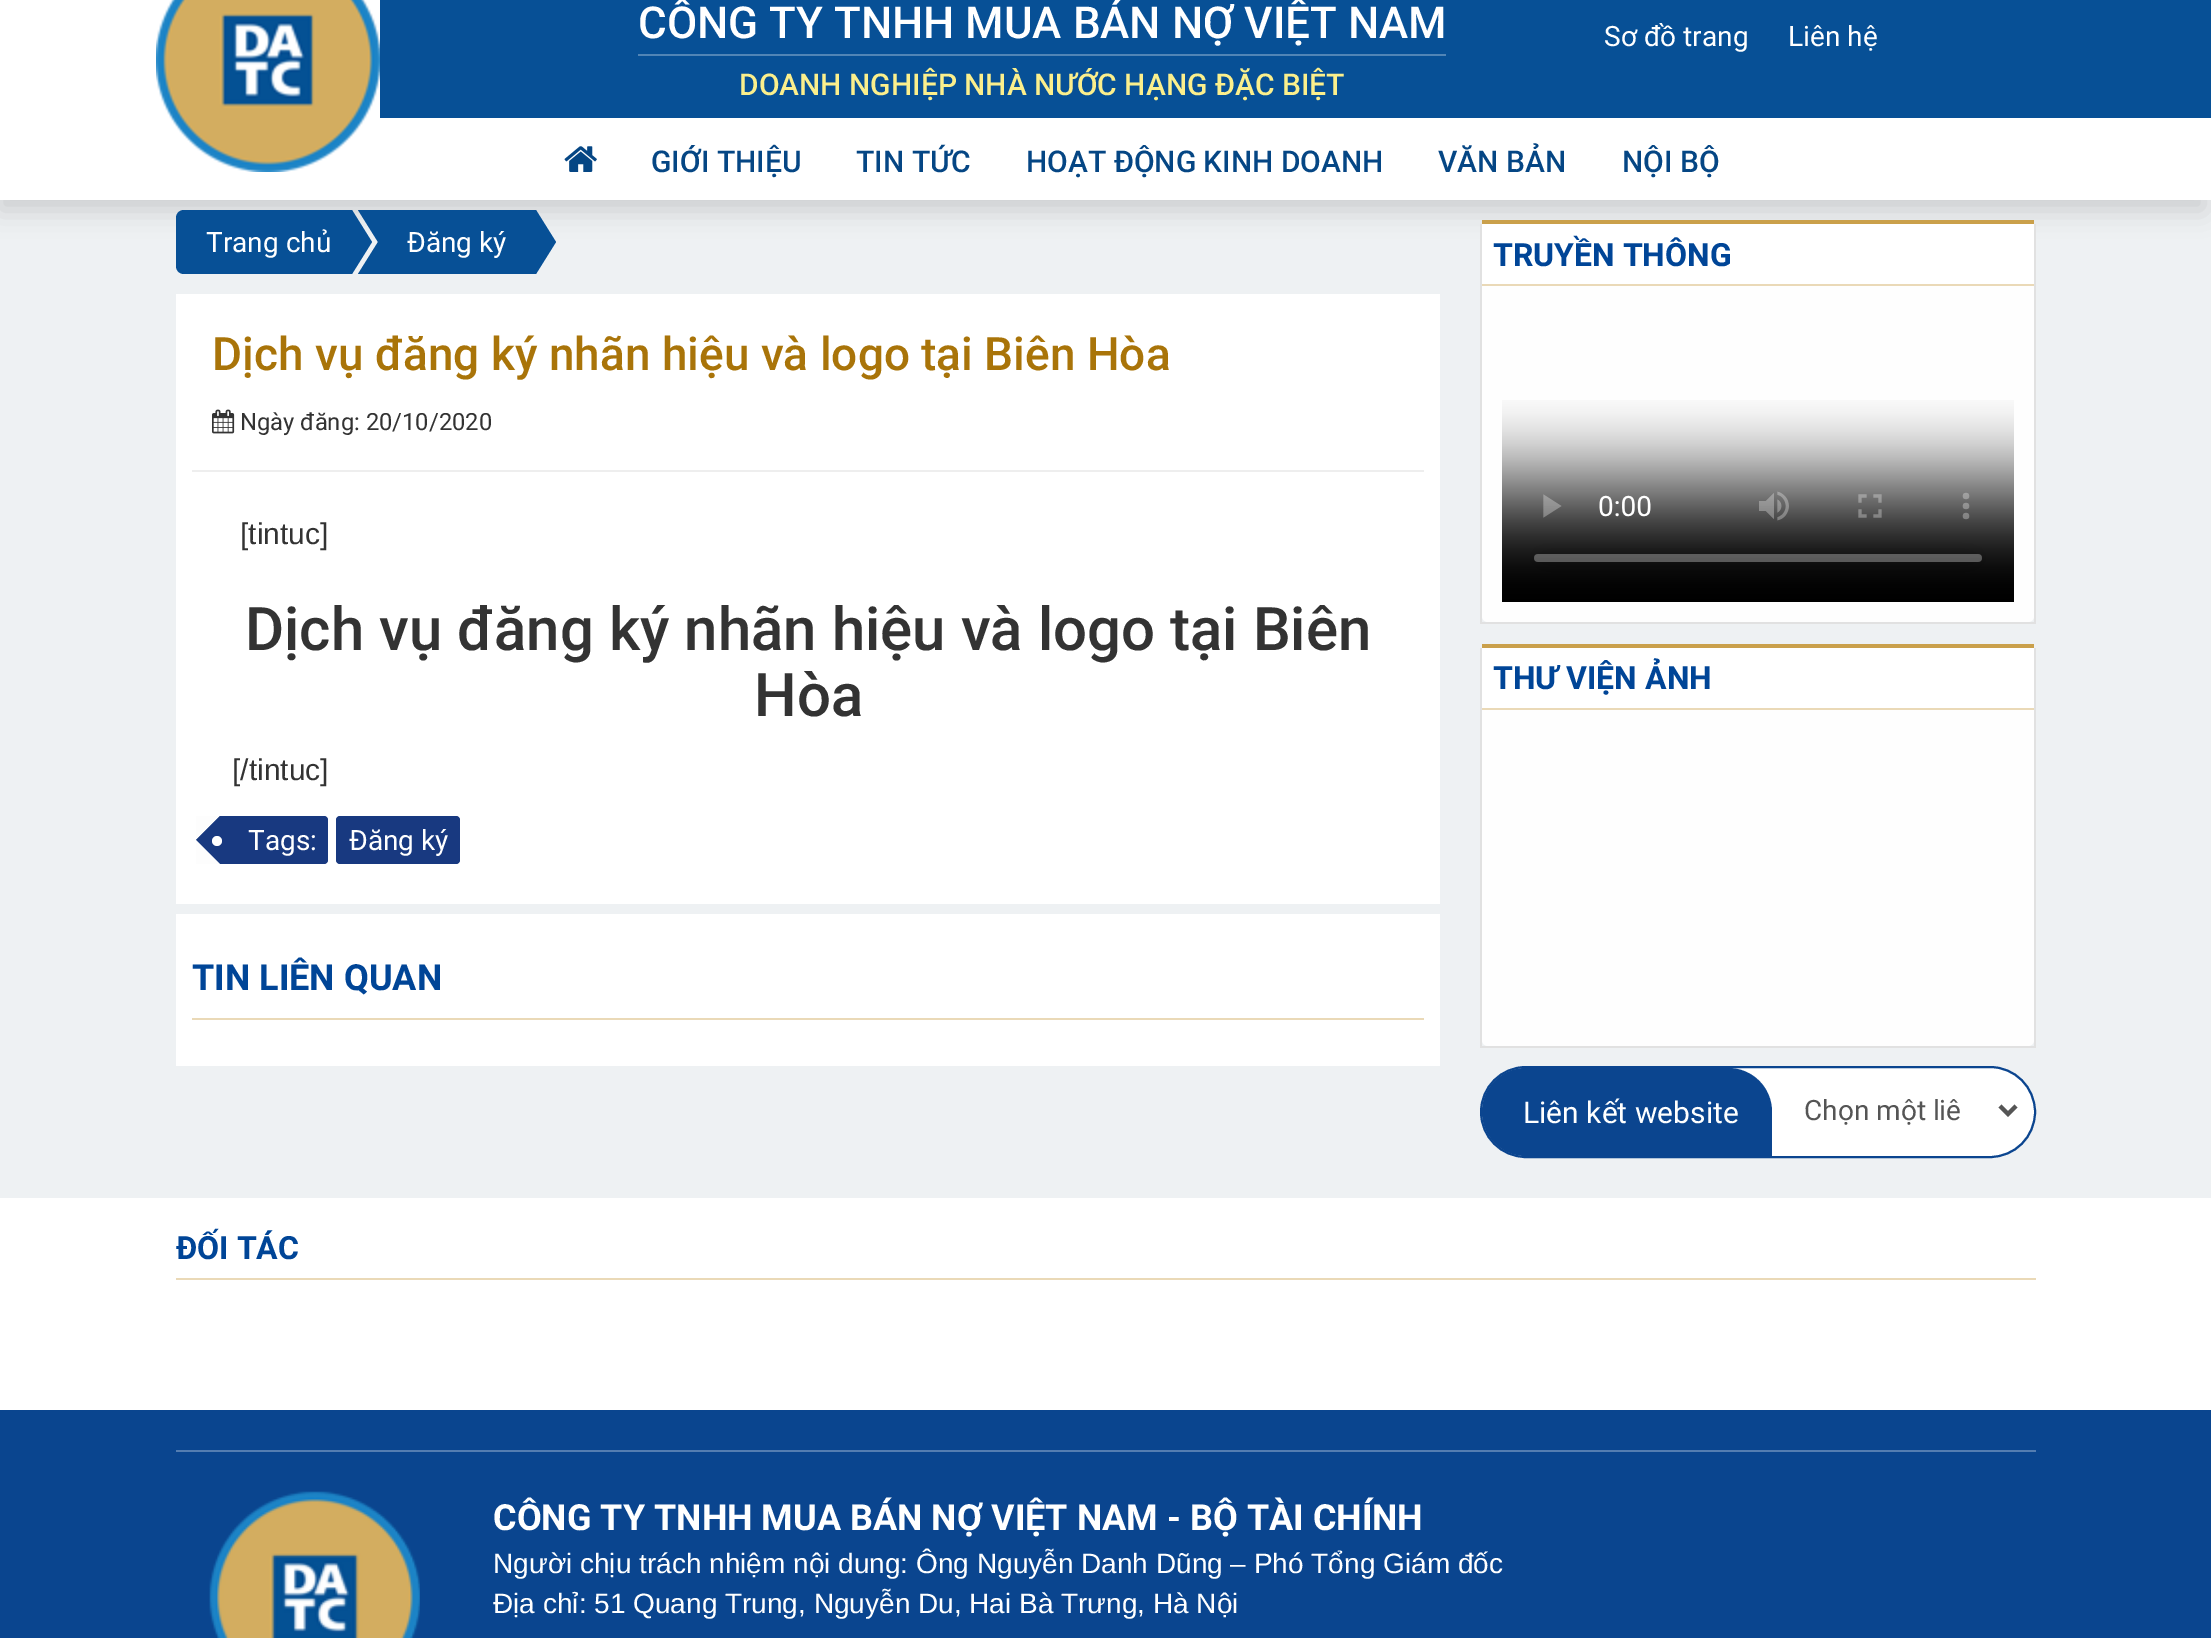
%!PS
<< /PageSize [2211 1638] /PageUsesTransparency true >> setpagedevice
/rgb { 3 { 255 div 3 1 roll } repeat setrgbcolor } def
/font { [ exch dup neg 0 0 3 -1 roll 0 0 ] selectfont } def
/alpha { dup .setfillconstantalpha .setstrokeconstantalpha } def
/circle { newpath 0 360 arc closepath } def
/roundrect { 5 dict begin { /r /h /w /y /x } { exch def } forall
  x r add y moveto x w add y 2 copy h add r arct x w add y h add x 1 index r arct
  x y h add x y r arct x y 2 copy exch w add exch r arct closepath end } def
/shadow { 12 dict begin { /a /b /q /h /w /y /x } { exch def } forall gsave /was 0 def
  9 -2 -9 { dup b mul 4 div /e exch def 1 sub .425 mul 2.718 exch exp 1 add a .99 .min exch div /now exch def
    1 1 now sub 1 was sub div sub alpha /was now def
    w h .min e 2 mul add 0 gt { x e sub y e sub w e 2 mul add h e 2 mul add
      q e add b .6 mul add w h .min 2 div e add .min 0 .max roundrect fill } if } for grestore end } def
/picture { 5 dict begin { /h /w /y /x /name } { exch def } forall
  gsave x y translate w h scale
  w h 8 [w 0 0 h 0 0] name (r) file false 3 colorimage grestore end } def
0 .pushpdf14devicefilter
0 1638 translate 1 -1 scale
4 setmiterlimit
238 241 243 rgb
0 0 2211 1638 rectfill
0 0 0 rgb
0 -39 2204 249 0 13 0.15 shadow
255 255 255 rgb
0 0 2211 200 rectfill
(img/1.rgb) 156 0 224 172 picture
7 80 150 rgb
380 0 1831 118 rectfill
81 133 182 rgb
638 54 808 2 rectfill
(img/2.rgb) 564 146 33 26 picture
7 80 150 rgb
184 210 moveto 352 210 lineto 352 274 lineto 184 274 lineto 179.5 274 176 270.5 176 266 curveto 176 218 lineto 176 213.5 179.5 210 184 210 curveto closepath fill
358 210 moveto 398 210 lineto 378 242 lineto closepath fill
378 210 20 64 rectfill
398 274 moveto 358 274 lineto 378 242 lineto closepath fill
352 274 moveto 352 210 lineto 372 242 lineto closepath fill
398 210 138 64 rectfill
536 274 moveto 536 210 lineto 556 242 lineto closepath fill
255 255 255 rgb
176 294 1264 610 rectfill
238 238 238 rgb
192 470 1232 2 rectfill
(img/3.rgb) 212 409 23 25 picture
24 57 128 rgb
196 816 132 48 4 roundrect fill
253 253 253 rgb
196 816 moveto 220 816 lineto 196 840 lineto closepath fill
24 57 128 rgb
220 816 moveto 220 864 lineto 196 840 lineto closepath fill
253 253 253 rgb
220 864 moveto 196 864 lineto 196 840 lineto closepath fill
255 255 255 rgb
217 841 5 circle fill
24 57 128 rgb
336 816 124 48 4 roundrect fill
[
  [176 914 1264 152 255 255 255]
  [192 1018 1232 2 234 217 183]
  [2034 224 2 400 225 225 225]
  [1480 622 556 2 225 225 225]
  [1480 224 2 400 225 225 225]
  [1482 224 552 60 255 255 255]
  [1482 220 552 4 202 160 75]
] { aload pop rgb rectfill } forall
254 254 254 rgb
1482 284 moveto 2034 284 lineto 2034 616 lineto 2034 619.5 2031.5 622 2028 622 curveto 1488 622 lineto 1484.5 622 1482 619.5 1482 616 curveto closepath fill
234 217 183 rgb
1482 284 552 2 rectfill
(img/4.rgb) 1502 400 512 202 picture
[
  [2034 648 2 400 225 225 225]
  [1480 1046 556 2 225 225 225]
  [1480 648 2 400 225 225 225]
  [1482 648 552 60 255 255 255]
  [1482 644 552 4 202 160 75]
] { aload pop rgb rectfill } forall
254 254 254 rgb
1482 708 moveto 2034 708 lineto 2034 1040 lineto 2034 1043.5 2031.5 1046 2028 1046 curveto 1488 1046 lineto 1484.5 1046 1482 1043.5 1482 1040 curveto closepath fill
234 217 183 rgb
1482 708 552 2 rectfill
255 255 255 rgb
1481 1067 554 90 45 roundrect gsave fill grestore
11 69 143 rgb
2 setlinewidth
stroke
1526 1068 moveto 1728 1068 lineto 1752.5 1068 1772 1087.5 1772 1112 curveto 1772 1156 lineto 1526 1156 lineto 1501.5 1156 1482 1136.5 1482 1112 curveto 1482 1087.5 1501.5 1068 1526 1068 curveto closepath fill
85 85 85 rgb
4 setlinewidth
2000 1106 moveto 2008 1114 lineto 2016 1106 lineto stroke
[
  [0 1198 2211 212 255 255 255]
  [176 1278 1860 2 234 217 183]
  [0 1410 2211 228 10 69 143]
  [176 1450 1860 2 84 125 177]
] { aload pop rgb rectfill } forall
(img/5.rgb) 209 1491 211 147 picture
/Roboto-Medium 44 font
255 255 255 rgb
638 38 moveto (CÔNG TY TNHH MUA BÁN NỢ VIỆT NAM) show
/Roboto-Medium 30 font
251 239 140 rgb
739 95 moveto (DOANH NGHIỆP NHÀ NƯỚC HẠNG ĐẶC BIỆT) show
/Roboto-Regular 28 font
255 255 255 rgb
1604 46 moveto (Sơ đồ trang) show
1788 46 moveto (Liên hệ) show
/Roboto-Medium 30 font
5 70 132 rgb
[
  [(GIỚI THIỆU) 651 172]
  [(TIN TỨC) 856 172]
  [(HOẠT ĐỘNG KINH DOANH) 1026 172]
  [(VĂN BẢN) 1438 172]
  [(NỘI BỘ) 1622 172]
] { aload pop moveto show } forall
/Roboto-Regular 28 font
255 255 255 rgb
206 252 moveto (Trang chủ) show
407 252 moveto (Đăng ký) show
/Roboto-Medium 46 font
169 116 9 rgb
212 370 moveto (Dịch vụ đăng ký nhãn hiệu và logo tại Biên Hòa) show
/Roboto-Regular 23.75 font
51 51 51 rgb
240 430 moveto (Ngày đăng: 20/10/2020) show
/LiberationSans-Regular 30 font
240 544 moveto ([tintuc]) show
/Roboto-Medium 60 font
245 650 moveto (Dịch vụ đăng ký nhãn hiệu và logo tại Biên) show
754 716 moveto (Hòa) show
/LiberationSans-Regular 30 font
232 780 moveto ([/tintuc]) show
/Roboto-Regular 28 font
255 255 255 rgb
248 850 moveto (Tags:) show
349 850 moveto (Đăng ký) show
/Roboto-Bold 36 font
0 69 151 rgb
192 990 moveto (TIN LIÊN QUAN) show
/Roboto-Bold 32 font
1493 266 moveto (TRUYỀN THÔNG) show
1493 689 moveto (THƯ VIỆN ẢNH) show
/Roboto-Regular 30 font
255 255 255 rgb
1523 1123 moveto (Liên kết website) show
/Roboto-Regular 28 font
85 85 85 rgb
1804 1120 moveto (Chọn một liê) show
/Roboto-Bold 32 font
0 69 151 rgb
176 1259 moveto (ĐỐI TÁC) show
/Roboto-Bold 36 font
255 255 255 rgb
493 1530 moveto (CÔNG TY TNHH MUA BÁN NỢ VIỆT NAM - BỘ TÀI CHÍNH) show
/LiberationSans-Regular 28 font
493 1573 moveto (Người chịu trách nhiệm nội dung: Ông Nguyễn Danh Dũng – Phó Tổng Giám đốc) show
493 1613 moveto (Địa chỉ: 51 Quang Trung, Nguyễn Du, Hai Bà Trưng, Hà Nội) show
.poppdf14devicefilter showpage
